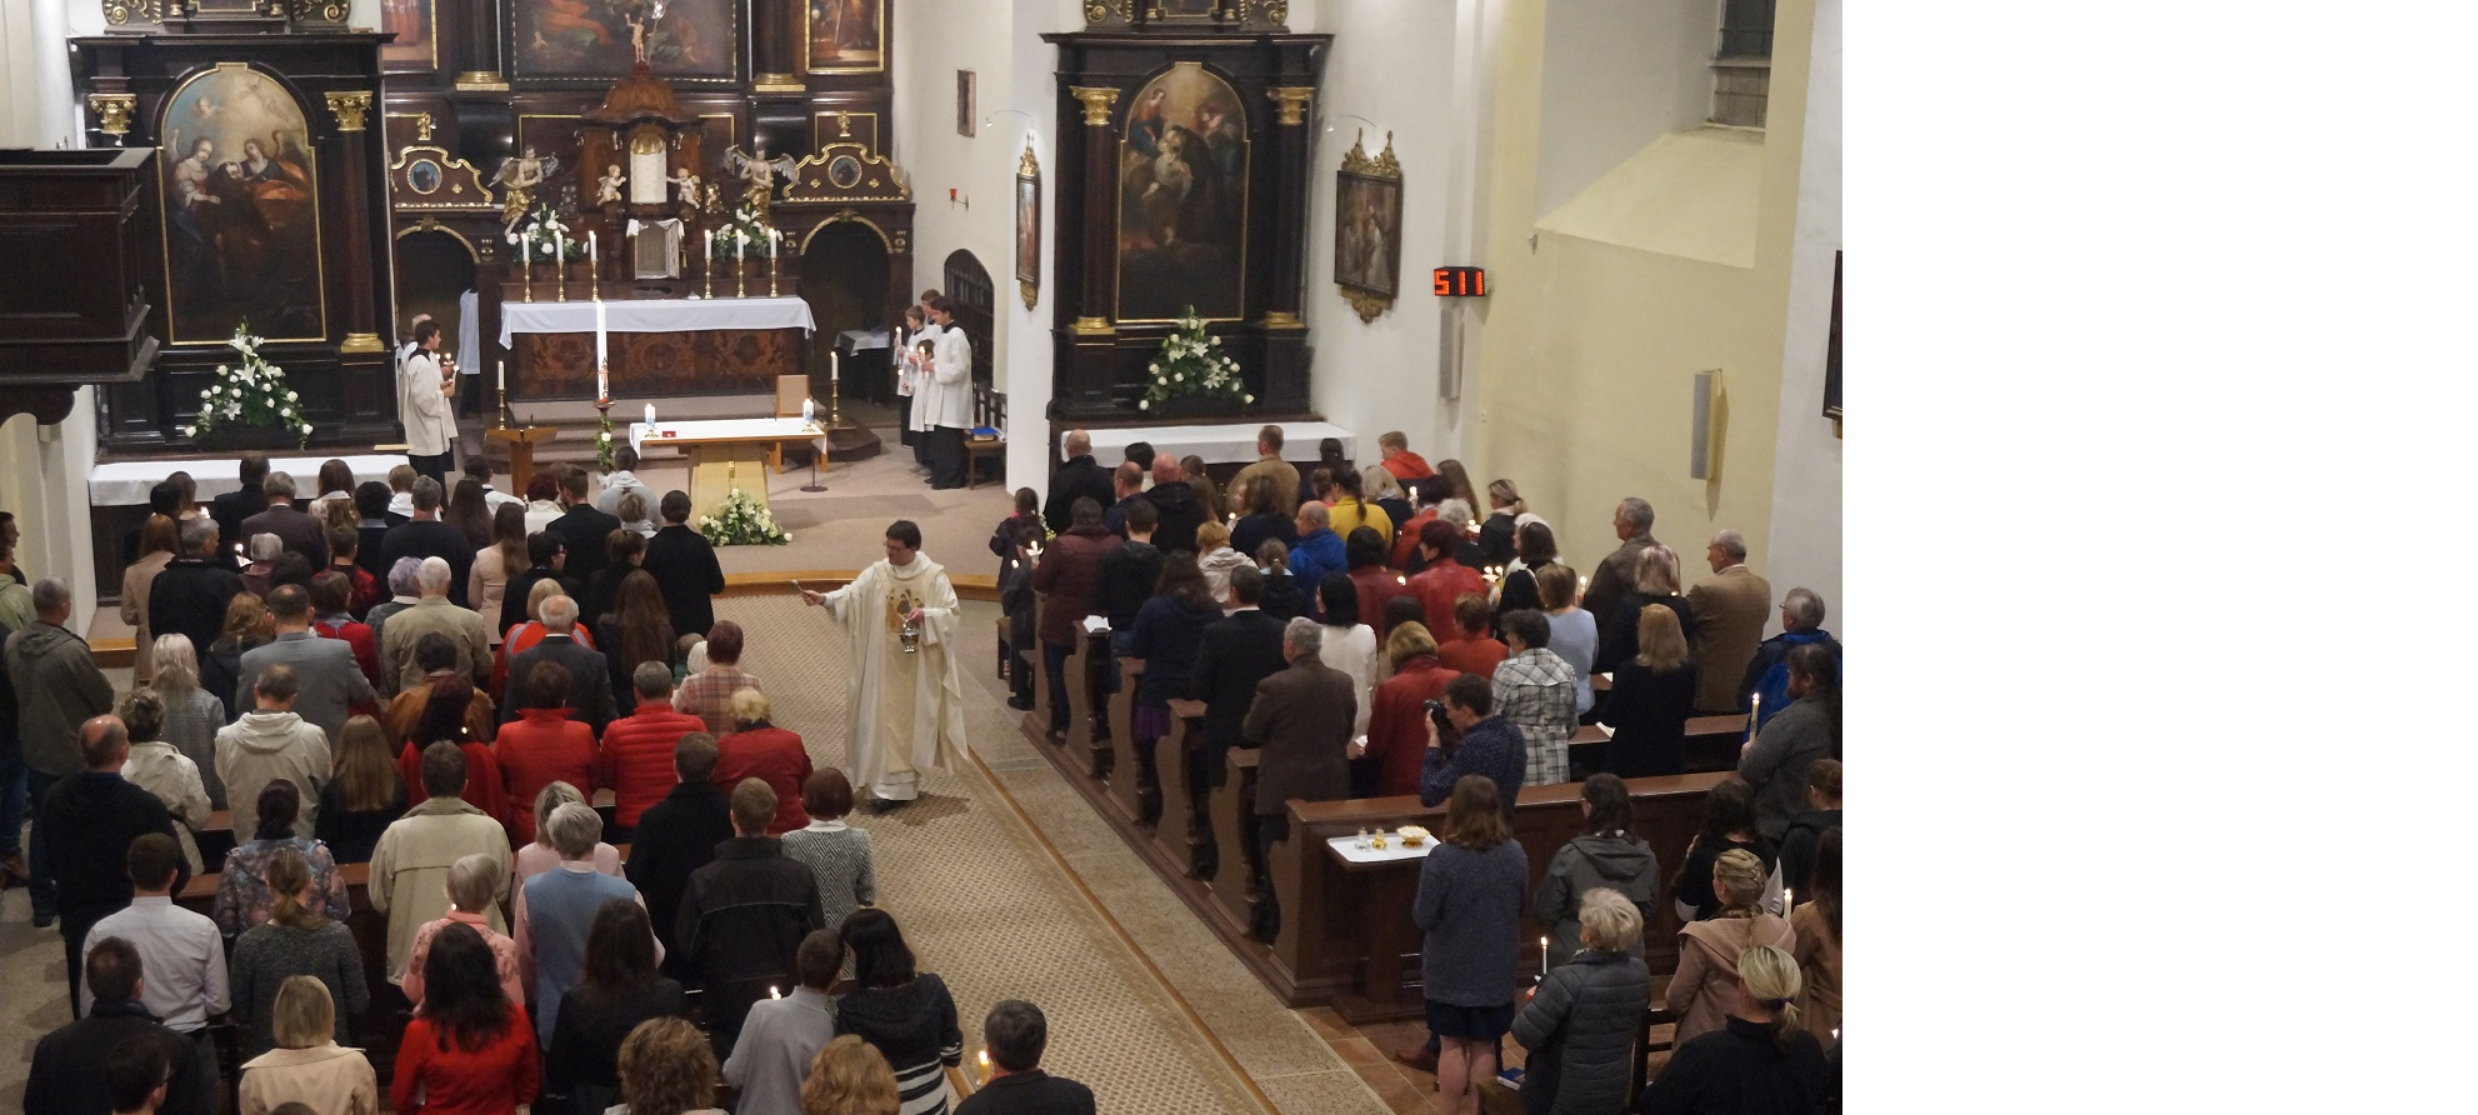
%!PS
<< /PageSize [2478 1115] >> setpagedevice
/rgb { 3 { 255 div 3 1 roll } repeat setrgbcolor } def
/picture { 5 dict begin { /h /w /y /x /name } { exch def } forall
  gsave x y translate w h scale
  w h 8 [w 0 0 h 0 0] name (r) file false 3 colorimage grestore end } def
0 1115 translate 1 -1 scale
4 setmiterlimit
255 255 255 rgb
0 0 2478 1115 rectfill
(img/1.rgb) 0 0 1843 1115 picture
showpage
